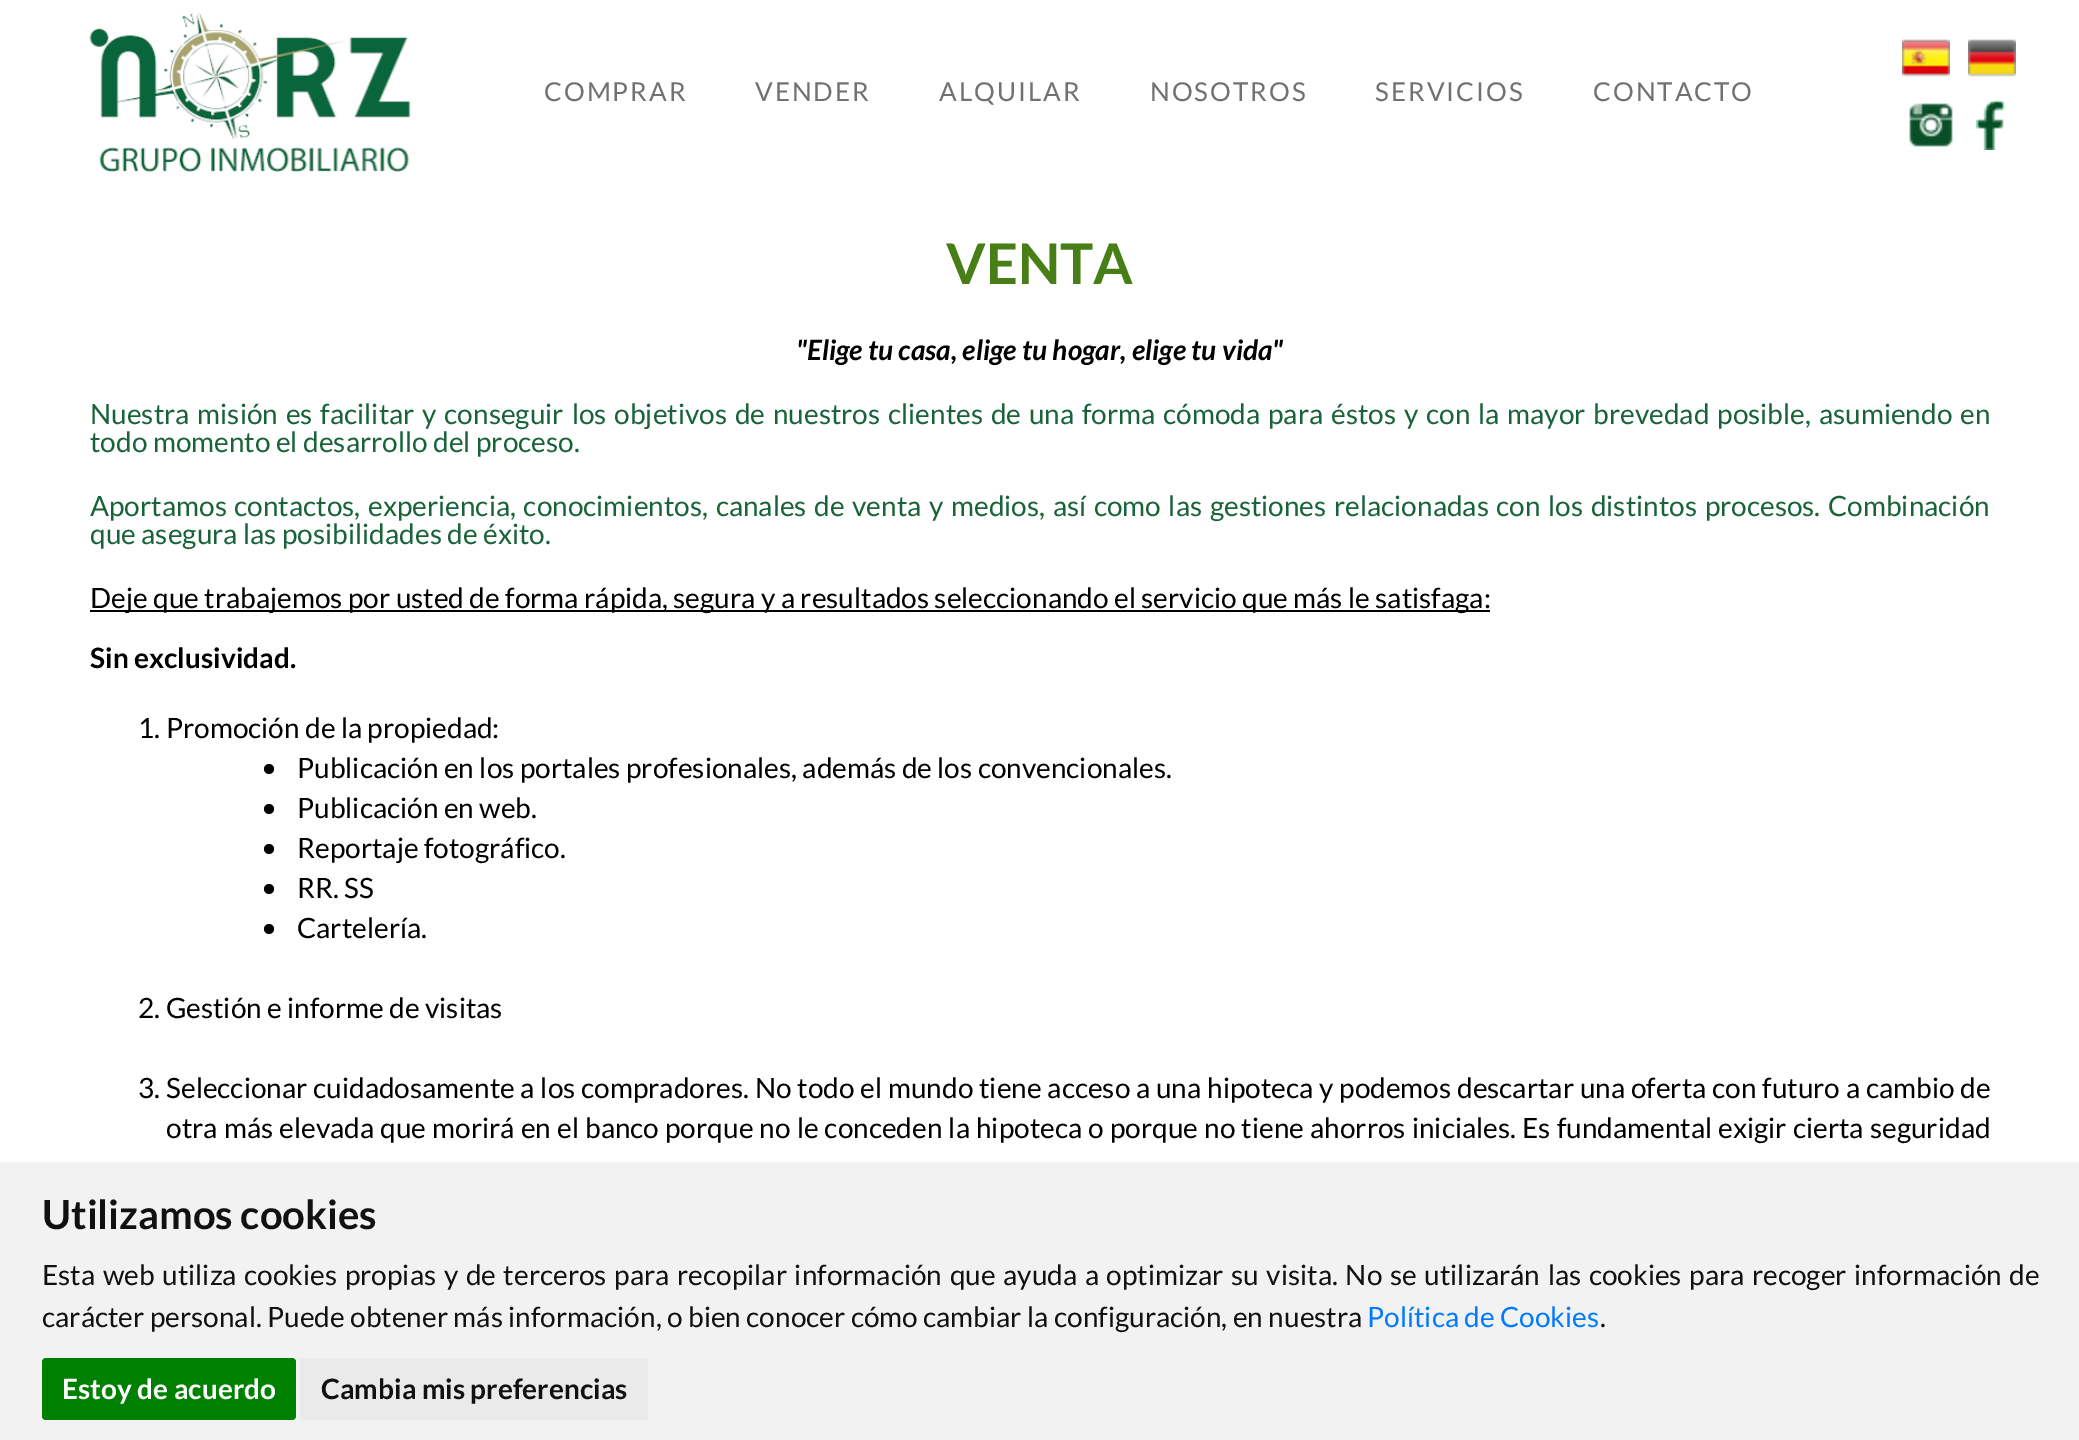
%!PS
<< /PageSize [2079 1440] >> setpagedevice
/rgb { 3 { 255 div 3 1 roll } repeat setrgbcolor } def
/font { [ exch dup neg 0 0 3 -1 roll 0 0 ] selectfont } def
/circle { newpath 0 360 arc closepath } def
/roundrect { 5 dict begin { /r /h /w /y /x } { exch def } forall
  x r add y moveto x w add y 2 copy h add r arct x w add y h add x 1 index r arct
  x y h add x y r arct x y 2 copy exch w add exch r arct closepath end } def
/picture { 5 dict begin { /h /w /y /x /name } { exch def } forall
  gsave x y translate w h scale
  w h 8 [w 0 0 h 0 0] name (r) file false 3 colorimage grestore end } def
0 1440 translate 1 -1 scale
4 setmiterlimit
255 255 255 rgb
0 0 2079 1440 rectfill
(img/1.rgb) 89 12 322 160 picture
(img/2.rgb) 1902 39 48 38 picture
(img/3.rgb) 1968 39 48 38 picture
(img/4.rgb) 1909 103 44 44 picture
(img/5.rgb) 1976 100 30 50 picture
0 0 1 rgb
90 610 1400 2 rectfill
269 769 5 circle fill
269 809 5 circle fill
269 849 5 circle fill
269 889 5 circle fill
269 929 5 circle fill
242 242 242 rgb
0 1162 2079 278 rectfill
0 128 0 rgb
42 1358 254 62 4 roundrect fill
234 234 234 rgb
300 1358 348 62 4 roundrect fill
/Lato-Regular 26 font
112 113 115 rgb
544 101 moveto 2 0 (COMPRAR) ashow
755 101 moveto 2 0 (VENDER) ashow
939 101 moveto 2 0 (ALQUILAR) ashow
1150 101 moveto 2 0 (NOSOTROS) ashow
1375 101 moveto 2 0 (SERVICIOS) ashow
1593 101 moveto 2 0 (CONTACTO) ashow
/Lato-Bold 56 font
72 126 22 rgb
946 284 moveto (VENTA) show
/Lato-BoldItalic 28 font
0 0 1 rgb
796 360 moveto ("Elige tu casa, elige tu hogar, elige tu vida") show
/Lato-Regular 28 font
25 99 58 rgb
90 424 moveto 2.4 0 32 (Nuestra misión es facilitar y conseguir los objetivos de nuestros clientes de una forma cómoda para éstos y con la mayor brevedad posible, asumiendo en) widthshow
90 452 moveto (todo momento el desarrollo del proceso.) show
90 516 moveto 2.2 0 32 (Aportamos contactos, experiencia, conocimientos, canales de venta y medios, así como las gestiones relacionadas con los distintos procesos. Combinación) widthshow
90 544 moveto (que asegura las posibilidades de éxito.) show
0 0 1 rgb
90 608 moveto (Deje que trabajemos por usted de forma rápida, segura y a resultados seleccionando el servicio que más le satisfaga:) show
/Lato-Bold 28 font
90 668 moveto (Sin exclusividad.) show
/Lato-Regular 28 font
[
  [(1. Promoción de la propiedad:) 138 738]
  [(Publicación en los portales profesionales, además de los convencionales.) 297 778]
  [(Publicación en web.) 297 818]
  [(Reportaje fotográfico.) 297 858]
  [(RR. SS) 297 898]
  [(Cartelería.) 297 938]
  [(2. Gestión e informe de visitas) 138 1018]
  [(3.) 138 1098]
] { aload pop moveto show } forall
166 1098 moveto 0.4 0 32 (Seleccionar cuidadosamente a los compradores. No todo el mundo tiene acceso a una hipoteca y podemos descartar una oferta con futuro a cambio de) widthshow
166 1138 moveto 0.7 0 32 (otra más elevada que morirá en el banco porque no le conceden la hipoteca o porque no tiene ahorros iniciales. Es fundamental exigir cierta seguridad) widthshow
/Lato-Bold 40 font
17 17 17 rgb
42 1229 moveto (Utilizamos cookies) show
/Lato-Regular 28 font
42 1285 moveto 2.2 0 32 (Esta web utiliza cookies propias y de terceros para recopilar información que ayuda a optimizar su visita. No se utilizarán las cookies para recoger información de) widthshow
42 1327 moveto (carácter personal. Puede obtener más información, o bien conocer cómo cambiar la configuración, en nuestra) show
0 123 255 rgb
1367 1327 moveto (Política de Cookies) show
17 17 17 rgb
1600 1327 moveto (.) show
/Lato-Bold 28 font
255 255 255 rgb
62 1399 moveto (Estoy de acuerdo) show
17 17 17 rgb
321 1399 moveto (Cambia mis preferencias) show
showpage
